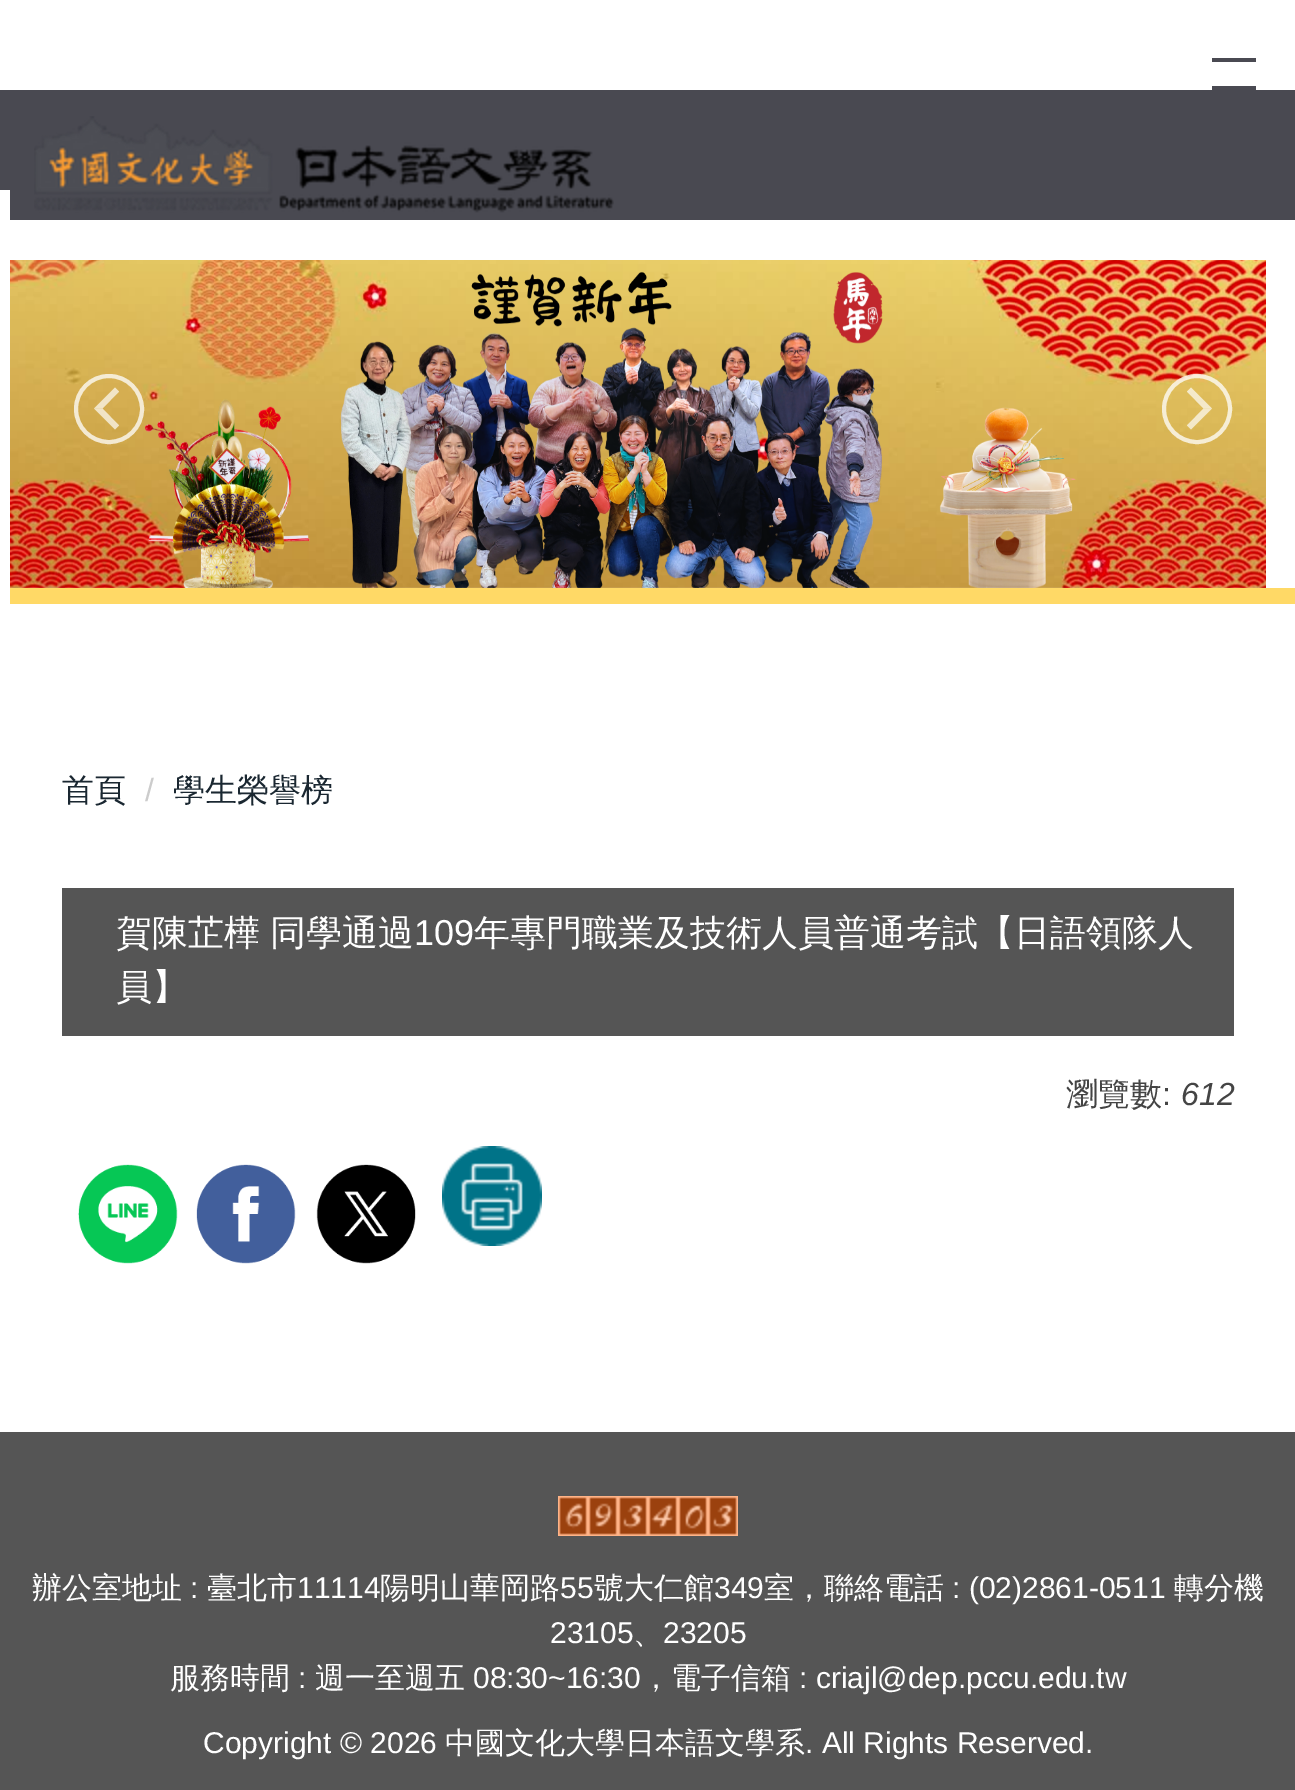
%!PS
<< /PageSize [1295 1790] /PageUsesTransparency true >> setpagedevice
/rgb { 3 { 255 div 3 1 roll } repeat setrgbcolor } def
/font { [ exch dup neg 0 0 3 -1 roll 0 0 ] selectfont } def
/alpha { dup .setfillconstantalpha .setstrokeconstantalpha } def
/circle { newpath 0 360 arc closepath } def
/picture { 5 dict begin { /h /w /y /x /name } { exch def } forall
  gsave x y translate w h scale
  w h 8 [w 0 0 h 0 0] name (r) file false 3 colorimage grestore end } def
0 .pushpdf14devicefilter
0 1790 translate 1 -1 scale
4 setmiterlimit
255 255 255 rgb
0 0 1295 1790 rectfill
[
  [1212 58 44 4 74 74 82]
  [1212 86 44 4 74 74 82]
  [10 190 1285 30 73 73 81]
  [0 90 1295 100 73 73 81]
] { aload pop rgb rectfill } forall
(img/1.rgb) 34 116 580 97 picture
255 217 102 rgb
10 588 1285 16 rectfill
(img/2.rgb) 10 260 1256 328 picture
0.75 alpha
255 255 255 rgb
4 setlinewidth
109 409 33 circle stroke
0.68 alpha
115 429.5 moveto 94 408.5 lineto 102.5 408.5 lineto 119 425.5 lineto closepath fill
94 408.5 moveto 115 387.5 lineto 119 391.5 lineto 102.5 408.5 lineto closepath fill
0.75 alpha
1197 409 33 circle stroke
0.68 alpha
1191 387.5 moveto 1212 408.5 lineto 1203.5 408.5 lineto 1187 391.5 lineto closepath fill
1212 408.5 moveto 1191 429.5 lineto 1187 425.5 lineto 1203.5 408.5 lineto closepath fill
1 alpha
85 85 85 rgb
62 888 1172 148 rectfill
(img/3.rgb) 78 1164 100 100 picture
(img/4.rgb) 196 1164 100 100 picture
(img/5.rgb) 316 1164 100 100 picture
(img/6.rgb) 442 1146 100 100 picture
0 1432 1295 358 rectfill
(img/7.rgb) 558 1496 30 40 picture
(img/8.rgb) 588 1496 30 40 picture
(img/9.rgb) 618 1496 30 40 picture
(img/10.rgb) 648 1496 30 40 picture
(img/11.rgb) 678 1496 30 40 picture
(img/9.rgb) 708 1496 30 40 picture
/WenQuanYiZenHei-Medium 32 font
26 39 49 rgb
62 801 moveto (首頁) show
/LiberationSans-Regular 32 font
204 204 204 rgb
145 801 moveto (/) show
/WenQuanYiZenHei-Medium 32 font
26 39 49 rgb
173 801 moveto (學生榮譽榜) show
/WenQuanYiZenHei-Medium 36 font
255 255 255 rgb
116 945 moveto -1 0 32 (賀陳芷樺 同學通過) widthshow
/LiberationSans-Regular 36 font
414 945 moveto (109) show
/WenQuanYiZenHei-Medium 36 font
474 945 moveto (年專門職業及技術人員普通考試【日語領隊人) show
116 999 moveto (員】) show
/WenQuanYiZenHei-Medium 32 font
68 68 68 rgb
1066 1105 moveto (瀏覽數) show
/LiberationSans-Regular 32 font
1162 1105 moveto (:) show
/LiberationSans-Italic 32 font
1181 1105 moveto (612) show
/WenQuanYiZenHei-Medium 30 font
255 255 255 rgb
32 1598 moveto (辦公室地址) show
/LiberationSans-Regular 30 font
190 1598 moveto (:) show
/WenQuanYiZenHei-Medium 30 font
207 1598 moveto (臺北市) show
/LiberationSans-Regular 30 font
297 1598 moveto (11114) show
/WenQuanYiZenHei-Medium 30 font
380 1598 moveto (陽明山華岡路) show
/LiberationSans-Regular 30 font
560 1598 moveto (55) show
/WenQuanYiZenHei-Medium 30 font
594 1598 moveto (號大仁館) show
/LiberationSans-Regular 30 font
714 1598 moveto (349) show
/WenQuanYiZenHei-Medium 30 font
764 1598 moveto (室，聯絡電話) show
/LiberationSans-Regular 30 font
952 1598 moveto (: \(02\)2861-0511) show
/WenQuanYiZenHei-Medium 30 font
1174 1598 moveto (轉分機) show
/LiberationSans-Regular 30 font
550 1643 moveto (23105) show
/WenQuanYiZenHei-Medium 30 font
633 1643 moveto (、) show
/LiberationSans-Regular 30 font
663 1643 moveto (23205) show
/WenQuanYiZenHei-Medium 30 font
170 1688 moveto (服務時間) show
/LiberationSans-Regular 30 font
298 1688 moveto (:) show
/WenQuanYiZenHei-Medium 30 font
315 1688 moveto (週一至週五) show
/LiberationSans-Regular 30 font
473 1688 moveto (08:30~16:30) show
/WenQuanYiZenHei-Medium 30 font
641 1688 moveto (，電子信箱) show
/LiberationSans-Regular 30 font
799 1688 moveto (: criajl@dep.pccu.edu.tw) show
203 1753 moveto (Copyright © 2026) show
/WenQuanYiZenHei-Medium 30 font
445 1753 moveto (中國文化大學日本語文學系) show
/LiberationSans-Regular 30 font
805 1753 moveto (. All Rights Reserved.) show
.poppdf14devicefilter showpage
